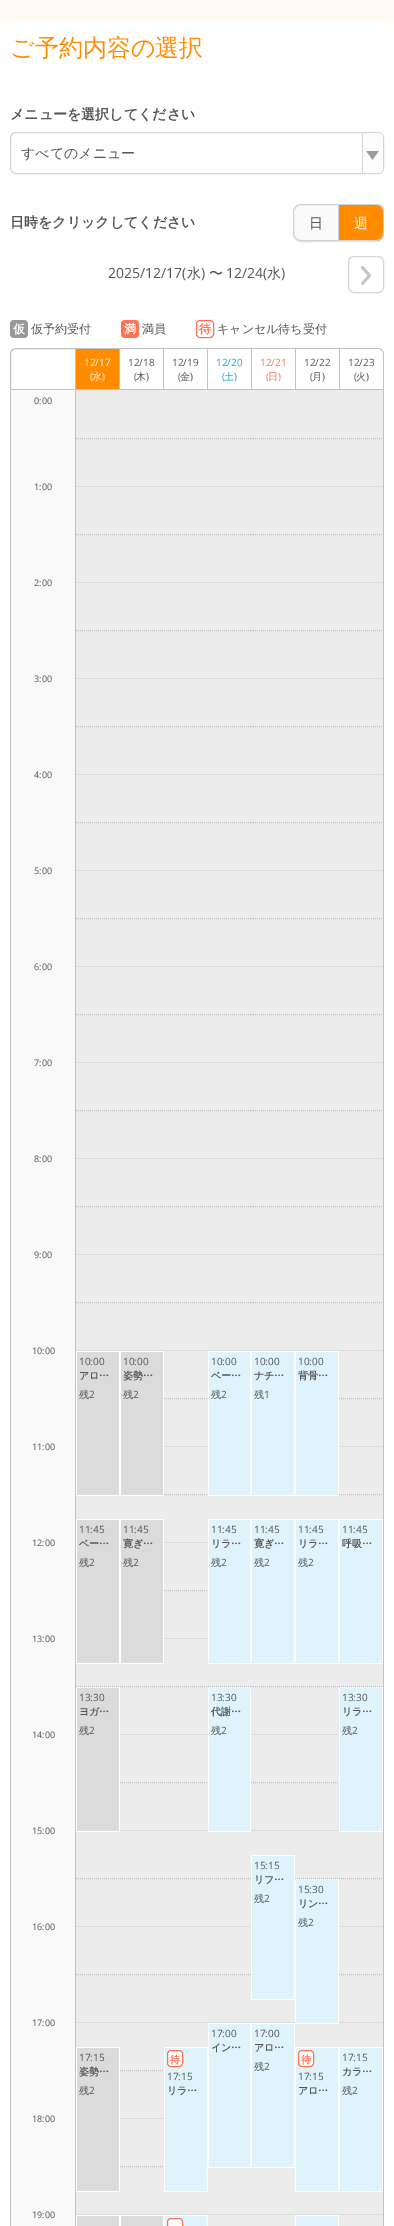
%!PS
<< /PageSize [394 2226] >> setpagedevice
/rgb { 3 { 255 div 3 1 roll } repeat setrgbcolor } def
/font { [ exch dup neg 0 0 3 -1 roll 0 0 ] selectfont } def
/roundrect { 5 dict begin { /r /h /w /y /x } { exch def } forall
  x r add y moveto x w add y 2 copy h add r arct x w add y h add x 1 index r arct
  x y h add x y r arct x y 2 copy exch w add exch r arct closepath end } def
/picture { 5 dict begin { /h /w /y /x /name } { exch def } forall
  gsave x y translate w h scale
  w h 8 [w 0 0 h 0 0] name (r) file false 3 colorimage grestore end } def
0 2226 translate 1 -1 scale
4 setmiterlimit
255 250 242 rgb
0 0 394 2226 rectfill
255 255 255 rgb
0 20 394 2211 5 roundrect fill
215 214 214 rgb
10.5 132.5 373 41 5.5 roundrect stroke
252 252 252 rgb
362 133 moveto 378 133 lineto 381 133 383 135 383 138 curveto 383 168 lineto 383 171 381 173 378 173 curveto 362 173 lineto closepath fill
215 214 214 rgb
362 133 1 40 rectfill
(img/1.rgb) 366 151 13 9 picture
230 230 230 rgb
293 233 moveto 293 245 306 242 314 242 curveto 339 242 lineto 339 241 lineto 301 241 lineto 297 241 293 237 293 233 curveto closepath fill
250 250 250 rgb
301 204.5 moveto 338.5 204.5 lineto 338.5 240.5 lineto 301 240.5 lineto 297 240.5 293.5 237 293.5 233 curveto 293.5 212 lineto 293.5 208 297 204.5 301 204.5 curveto closepath gsave fill grestore
207 210 214 rgb
stroke
230 230 230 rgb
339 241 moveto 339 242 lineto 364 242 lineto 372 242 384 245 384 233 curveto 384 237 380 241 376 241 curveto closepath fill
255 140 0 rgb
339 204 moveto 376 204 lineto 380.5 204 384 207.5 384 212 curveto 384 233 lineto 384 237.5 380.5 241 376 241 curveto 339 241 lineto closepath fill
207 210 214 rgb
339 204 moveto 376 204 lineto 380 204 384 208 384 212 curveto 384 233 lineto 384 237 380 241 376 241 curveto 339 241 lineto closepath 339 205 moveto 376 205 lineto 380 205 383 208 383 212 curveto 383 233 lineto 383 237 380 240 376 240 curveto 339 240 lineto closepath eofill
215 214 214 rgb
348.5 256.5 35 36 5.5 roundrect stroke
(img/2.rgb) 361 266 10 19 picture
153 153 153 rgb
10 320 18 18 4 roundrect fill
255 113 83 rgb
121 320 18 18 4 roundrect fill
196.5 320.5 17 17 3.5 roundrect stroke
194 194 194 rgb
16 348.5 moveto 75.5 348.5 lineto 75.5 389.5 lineto 10.5 389.5 lineto 10.5 354 lineto 10.5 351 13 348.5 16 348.5 curveto closepath stroke
[
  [76 349 43 40 255 140 0]
  [76 348 264 1 194 194 194]
  [119 348 1 42 194 194 194]
  [76 389 44 1 194 194 194]
  [163 348 1 42 194 194 194]
  [120 389 44 1 194 194 194]
  [207 348 1 42 194 194 194]
  [164 389 44 1 194 194 194]
  [251 348 1 42 194 194 194]
  [208 389 44 1 194 194 194]
  [295 348 1 42 194 194 194]
  [252 389 44 1 194 194 194]
  [339 348 1 42 194 194 194]
  [296 389 44 1 194 194 194]
] { aload pop rgb rectfill } forall
340 348 moveto 378 348 lineto 381 348 384 351 384 354 curveto 384 390 lineto 340 390 lineto closepath 340 349 moveto 378 349 lineto 381 349 383 351 383 354 curveto 383 389 lineto 340 389 lineto closepath eofill
10 390 moveto 384 390 lineto 384 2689 lineto 384 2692 381 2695 378 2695 curveto 16 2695 lineto 13 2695 10 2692 10 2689 curveto closepath 11 390 moveto 384 390 lineto 384 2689 lineto 384 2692 381 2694 378 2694 curveto 16 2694 lineto 13 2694 11 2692 11 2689 curveto closepath eofill
383 390 moveto 383 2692 lineto 384 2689 lineto 384 390 lineto closepath fill
249 249 249 rgb
11 390 moveto 11 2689 lineto 11 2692 13 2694 16 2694 curveto 76 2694 lineto 76 390 lineto closepath fill
194 194 194 rgb
75 390 1 1836 rectfill
236 236 236 rgb
76 390 44 96 rectfill
194 194 194 rgb
[1 1] 0 setdash
76 438.5 moveto 120 438.5 lineto stroke
236 236 236 rgb
76 487 44 95 rectfill
221 221 221 rgb
76 486 175 1 rectfill
194 194 194 rgb
76 534.5 moveto 120 534.5 lineto stroke
236 236 236 rgb
76 583 44 95 rectfill
221 221 221 rgb
76 582 175 1 rectfill
194 194 194 rgb
76 630.5 moveto 120 630.5 lineto stroke
236 236 236 rgb
76 679 44 95 rectfill
221 221 221 rgb
76 678 175 1 rectfill
194 194 194 rgb
76 726.5 moveto 120 726.5 lineto stroke
236 236 236 rgb
76 775 44 95 rectfill
221 221 221 rgb
76 774 175 1 rectfill
194 194 194 rgb
76 822.5 moveto 120 822.5 lineto stroke
236 236 236 rgb
76 871 44 95 rectfill
221 221 221 rgb
76 870 175 1 rectfill
194 194 194 rgb
76 918.5 moveto 120 918.5 lineto stroke
236 236 236 rgb
76 967 44 95 rectfill
221 221 221 rgb
76 966 175 1 rectfill
194 194 194 rgb
76 1014.5 moveto 120 1014.5 lineto stroke
236 236 236 rgb
76 1063 44 95 rectfill
221 221 221 rgb
76 1062 175 1 rectfill
194 194 194 rgb
76 1110.5 moveto 120 1110.5 lineto stroke
236 236 236 rgb
76 1159 44 95 rectfill
221 221 221 rgb
76 1158 175 1 rectfill
194 194 194 rgb
76 1206.5 moveto 120 1206.5 lineto stroke
236 236 236 rgb
76 1255 44 95 rectfill
221 221 221 rgb
76 1254 175 1 rectfill
194 194 194 rgb
76 1302.5 moveto 120 1302.5 lineto stroke
[
  [76 1350 175 1 221 221 221]
  [76 1496 88 23 236 236 236]
  [76 1664 88 22 236 236 236]
  [77 1686 43 1 236 236 236]
] { aload pop rgb rectfill } forall
194 194 194 rgb
76 1686.5 moveto 120 1686.5 lineto stroke
236 236 236 rgb
76 1832 44 94 rectfill
194 194 194 rgb
76 1878.5 moveto 120 1878.5 lineto stroke
236 236 236 rgb
76 1927 44 95 rectfill
221 221 221 rgb
76 1926 175 1 rectfill
194 194 194 rgb
76 1974.5 moveto 120 1974.5 lineto stroke
[
  [76 2023 44 24 236 236 236]
  [76 2022 175 1 221 221 221]
  [76 2192 44 22 236 236 236]
  [76 2214 175 1 221 221 221]
  [77 1352 42 143 219 219 219]
  [77 1520 42 143 219 219 219]
  [77 1688 42 143 219 219 219]
  [77 2048 42 143 219 219 219]
  [77 2216 42 10 219 219 219]
  [120 390 44 96 236 236 236]
] { aload pop rgb rectfill } forall
194 194 194 rgb
120 438.5 moveto 164 438.5 lineto stroke
236 236 236 rgb
120 487 44 95 rectfill
194 194 194 rgb
120 534.5 moveto 164 534.5 lineto stroke
236 236 236 rgb
120 583 44 95 rectfill
194 194 194 rgb
120 630.5 moveto 164 630.5 lineto stroke
236 236 236 rgb
120 679 44 95 rectfill
194 194 194 rgb
120 726.5 moveto 164 726.5 lineto stroke
236 236 236 rgb
120 775 44 95 rectfill
194 194 194 rgb
120 822.5 moveto 164 822.5 lineto stroke
236 236 236 rgb
120 871 44 95 rectfill
194 194 194 rgb
120 918.5 moveto 164 918.5 lineto stroke
236 236 236 rgb
120 967 44 95 rectfill
194 194 194 rgb
120 1014.5 moveto 164 1014.5 lineto stroke
236 236 236 rgb
120 1063 44 95 rectfill
194 194 194 rgb
120 1110.5 moveto 164 1110.5 lineto stroke
236 236 236 rgb
120 1159 44 95 rectfill
194 194 194 rgb
120 1206.5 moveto 164 1206.5 lineto stroke
236 236 236 rgb
120 1255 44 95 rectfill
194 194 194 rgb
120 1302.5 moveto 164 1302.5 lineto stroke
236 236 236 rgb
120 1686 44 48 rectfill
194 194 194 rgb
120 1686.5 moveto 164 1686.5 lineto stroke
236 236 236 rgb
120 1735 44 95 rectfill
221 221 221 rgb
120 1734 88 1 rectfill
194 194 194 rgb
120 1782.5 moveto 164 1782.5 lineto stroke
236 236 236 rgb
120 1831 44 95 rectfill
221 221 221 rgb
120 1830 88 1 rectfill
194 194 194 rgb
120 1878.5 moveto 164 1878.5 lineto stroke
236 236 236 rgb
120 1927 44 95 rectfill
194 194 194 rgb
120 1974.5 moveto 164 1974.5 lineto stroke
236 236 236 rgb
120 2023 44 95 rectfill
194 194 194 rgb
120 2070.5 moveto 164 2070.5 lineto stroke
236 236 236 rgb
120 2119 44 95 rectfill
221 221 221 rgb
120 2118 44 1 rectfill
194 194 194 rgb
120 2166.5 moveto 164 2166.5 lineto stroke
[
  [121 1352 42 143 219 219 219]
  [121 1520 42 143 219 219 219]
  [121 2216 42 10 219 219 219]
  [164 390 44 96 236 236 236]
] { aload pop rgb rectfill } forall
194 194 194 rgb
164 438.5 moveto 208 438.5 lineto stroke
236 236 236 rgb
164 487 44 95 rectfill
194 194 194 rgb
164 534.5 moveto 208 534.5 lineto stroke
236 236 236 rgb
164 583 44 95 rectfill
194 194 194 rgb
164 630.5 moveto 208 630.5 lineto stroke
236 236 236 rgb
164 679 44 95 rectfill
194 194 194 rgb
164 726.5 moveto 208 726.5 lineto stroke
236 236 236 rgb
164 775 44 95 rectfill
194 194 194 rgb
164 822.5 moveto 208 822.5 lineto stroke
236 236 236 rgb
164 871 44 95 rectfill
194 194 194 rgb
164 918.5 moveto 208 918.5 lineto stroke
236 236 236 rgb
164 967 44 95 rectfill
194 194 194 rgb
164 1014.5 moveto 208 1014.5 lineto stroke
236 236 236 rgb
164 1063 44 95 rectfill
194 194 194 rgb
164 1110.5 moveto 208 1110.5 lineto stroke
236 236 236 rgb
164 1159 44 95 rectfill
194 194 194 rgb
164 1206.5 moveto 208 1206.5 lineto stroke
236 236 236 rgb
164 1255 44 95 rectfill
194 194 194 rgb
164 1302.5 moveto 208 1302.5 lineto stroke
236 236 236 rgb
164 1351 44 95 rectfill
194 194 194 rgb
164 1398.5 moveto 208 1398.5 lineto stroke
236 236 236 rgb
164 1447 44 95 rectfill
221 221 221 rgb
164 1446 44 1 rectfill
194 194 194 rgb
164 1494.5 moveto 208 1494.5 lineto stroke
236 236 236 rgb
164 1543 44 95 rectfill
221 221 221 rgb
164 1542 44 1 rectfill
194 194 194 rgb
164 1590.5 moveto 208 1590.5 lineto stroke
236 236 236 rgb
164 1639 44 95 rectfill
221 221 221 rgb
164 1638 44 1 rectfill
194 194 194 rgb
164 1686.5 moveto 208 1686.5 lineto stroke
236 236 236 rgb
164 1735 44 95 rectfill
194 194 194 rgb
164 1782.5 moveto 208 1782.5 lineto stroke
236 236 236 rgb
164 1831 44 95 rectfill
194 194 194 rgb
164 1878.5 moveto 208 1878.5 lineto stroke
236 236 236 rgb
164 1927 44 95 rectfill
194 194 194 rgb
164 1974.5 moveto 208 1974.5 lineto stroke
[
  [164 2023 44 24 236 236 236]
  [164 2192 44 22 236 236 236]
  [165 2048 42 143 222 243 251]
] { aload pop rgb rectfill } forall
255 255 255 rgb
167.5 2050.5 15 16 3.5 roundrect gsave fill grestore
255 113 83 rgb
[] 0 setdash
stroke
222 243 251 rgb
165 2216 42 10 rectfill
255 255 255 rgb
167.5 2218.5 15 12 3.5 roundrect gsave fill grestore
255 113 83 rgb
stroke
236 236 236 rgb
208 390 43 96 rectfill
194 194 194 rgb
[1 1] 0 setdash
208 438.5 moveto 251 438.5 lineto stroke
236 236 236 rgb
208 487 43 95 rectfill
194 194 194 rgb
208 534.5 moveto 251 534.5 lineto stroke
236 236 236 rgb
208 583 43 95 rectfill
194 194 194 rgb
208 630.5 moveto 251 630.5 lineto stroke
236 236 236 rgb
208 679 43 95 rectfill
194 194 194 rgb
208 726.5 moveto 251 726.5 lineto stroke
236 236 236 rgb
208 775 43 95 rectfill
194 194 194 rgb
208 822.5 moveto 251 822.5 lineto stroke
236 236 236 rgb
208 871 43 95 rectfill
194 194 194 rgb
208 918.5 moveto 251 918.5 lineto stroke
236 236 236 rgb
208 967 43 95 rectfill
194 194 194 rgb
208 1014.5 moveto 251 1014.5 lineto stroke
236 236 236 rgb
208 1063 43 95 rectfill
194 194 194 rgb
208 1110.5 moveto 251 1110.5 lineto stroke
236 236 236 rgb
208 1159 43 95 rectfill
194 194 194 rgb
208 1206.5 moveto 251 1206.5 lineto stroke
236 236 236 rgb
208 1255 43 95 rectfill
194 194 194 rgb
208 1302.5 moveto 251 1302.5 lineto stroke
[
  [208 1496 131 23 236 236 236]
  [208 1664 175 22 236 236 236]
  [209 1686 41 1 236 236 236]
] { aload pop rgb rectfill } forall
194 194 194 rgb
208 1686.5 moveto 251 1686.5 lineto stroke
236 236 236 rgb
208 1832 43 94 rectfill
194 194 194 rgb
208 1878.5 moveto 251 1878.5 lineto stroke
236 236 236 rgb
208 1927 43 95 rectfill
194 194 194 rgb
208 1974.5 moveto 251 1974.5 lineto stroke
[
  [208 2168 87 46 236 236 236]
  [208 2215 87 11 236 236 236]
  [209 1352 41 143 222 243 251]
  [209 1520 41 143 222 243 251]
  [209 1688 41 143 222 243 251]
  [209 2024 41 143 222 243 251]
  [251 390 44 96 236 236 236]
] { aload pop rgb rectfill } forall
194 194 194 rgb
251 438.5 moveto 295 438.5 lineto stroke
236 236 236 rgb
251 487 44 95 rectfill
221 221 221 rgb
251 486 132 1 rectfill
194 194 194 rgb
251 534.5 moveto 295 534.5 lineto stroke
236 236 236 rgb
251 583 44 95 rectfill
221 221 221 rgb
251 582 132 1 rectfill
194 194 194 rgb
251 630.5 moveto 295 630.5 lineto stroke
236 236 236 rgb
251 679 44 95 rectfill
221 221 221 rgb
251 678 132 1 rectfill
194 194 194 rgb
251 726.5 moveto 295 726.5 lineto stroke
236 236 236 rgb
251 775 44 95 rectfill
221 221 221 rgb
251 774 132 1 rectfill
194 194 194 rgb
251 822.5 moveto 295 822.5 lineto stroke
236 236 236 rgb
251 871 44 95 rectfill
221 221 221 rgb
251 870 132 1 rectfill
194 194 194 rgb
251 918.5 moveto 295 918.5 lineto stroke
236 236 236 rgb
251 967 44 95 rectfill
221 221 221 rgb
251 966 132 1 rectfill
194 194 194 rgb
251 1014.5 moveto 295 1014.5 lineto stroke
236 236 236 rgb
251 1063 44 95 rectfill
221 221 221 rgb
251 1062 132 1 rectfill
194 194 194 rgb
251 1110.5 moveto 295 1110.5 lineto stroke
236 236 236 rgb
251 1159 44 95 rectfill
221 221 221 rgb
251 1158 132 1 rectfill
194 194 194 rgb
251 1206.5 moveto 295 1206.5 lineto stroke
236 236 236 rgb
251 1255 44 95 rectfill
221 221 221 rgb
251 1254 132 1 rectfill
194 194 194 rgb
251 1302.5 moveto 295 1302.5 lineto stroke
221 221 221 rgb
251 1350 132 1 rectfill
236 236 236 rgb
251 1686 88 48 rectfill
194 194 194 rgb
251 1686.5 moveto 295 1686.5 lineto stroke
236 236 236 rgb
251 1735 44 95 rectfill
221 221 221 rgb
251 1734 88 1 rectfill
194 194 194 rgb
251 1782.5 moveto 295 1782.5 lineto stroke
[
  [251 1831 44 24 236 236 236]
  [251 1830 88 1 221 221 221]
  [251 2000 44 22 236 236 236]
  [251 2022 44 1 221 221 221]
  [251 2214 132 1 221 221 221]
  [252 1352 42 143 222 243 251]
  [252 1520 42 143 222 243 251]
  [252 1856 42 143 222 243 251]
  [252 2024 42 143 222 243 251]
  [295 390 44 96 236 236 236]
] { aload pop rgb rectfill } forall
194 194 194 rgb
295 438.5 moveto 339 438.5 lineto stroke
236 236 236 rgb
295 487 44 95 rectfill
194 194 194 rgb
295 534.5 moveto 339 534.5 lineto stroke
236 236 236 rgb
295 583 44 95 rectfill
194 194 194 rgb
295 630.5 moveto 339 630.5 lineto stroke
236 236 236 rgb
295 679 44 95 rectfill
194 194 194 rgb
295 726.5 moveto 339 726.5 lineto stroke
236 236 236 rgb
295 775 44 95 rectfill
194 194 194 rgb
295 822.5 moveto 339 822.5 lineto stroke
236 236 236 rgb
295 871 44 95 rectfill
194 194 194 rgb
295 918.5 moveto 339 918.5 lineto stroke
236 236 236 rgb
295 967 44 95 rectfill
194 194 194 rgb
295 1014.5 moveto 339 1014.5 lineto stroke
236 236 236 rgb
295 1063 44 95 rectfill
194 194 194 rgb
295 1110.5 moveto 339 1110.5 lineto stroke
236 236 236 rgb
295 1159 44 95 rectfill
194 194 194 rgb
295 1206.5 moveto 339 1206.5 lineto stroke
236 236 236 rgb
295 1255 44 95 rectfill
194 194 194 rgb
295 1302.5 moveto 339 1302.5 lineto stroke
295 1686.5 moveto 339 1686.5 lineto stroke
236 236 236 rgb
295 1735 44 95 rectfill
194 194 194 rgb
295 1782.5 moveto 339 1782.5 lineto stroke
236 236 236 rgb
295 1831 44 47 rectfill
296 1878 43 1 rectfill
194 194 194 rgb
295 1878.5 moveto 339 1878.5 lineto stroke
[
  [295 2024 44 23 236 236 236]
  [295 2192 88 22 236 236 236]
  [296 1352 42 143 222 243 251]
  [296 1520 42 143 222 243 251]
  [296 1880 42 143 222 243 251]
  [296 2048 42 143 222 243 251]
] { aload pop rgb rectfill } forall
255 255 255 rgb
298.5 2050.5 15 16 3.5 roundrect gsave fill grestore
255 113 83 rgb
[] 0 setdash
stroke
222 243 251 rgb
296 2216 42 10 rectfill
236 236 236 rgb
339 390 44 96 rectfill
194 194 194 rgb
[1 1] 0 setdash
339 438.5 moveto 383 438.5 lineto stroke
236 236 236 rgb
339 487 44 95 rectfill
194 194 194 rgb
339 534.5 moveto 383 534.5 lineto stroke
236 236 236 rgb
339 583 44 95 rectfill
194 194 194 rgb
339 630.5 moveto 383 630.5 lineto stroke
236 236 236 rgb
339 679 44 95 rectfill
194 194 194 rgb
339 726.5 moveto 383 726.5 lineto stroke
236 236 236 rgb
339 775 44 95 rectfill
194 194 194 rgb
339 822.5 moveto 383 822.5 lineto stroke
236 236 236 rgb
339 871 44 95 rectfill
194 194 194 rgb
339 918.5 moveto 383 918.5 lineto stroke
236 236 236 rgb
339 967 44 95 rectfill
194 194 194 rgb
339 1014.5 moveto 383 1014.5 lineto stroke
236 236 236 rgb
339 1063 44 95 rectfill
194 194 194 rgb
339 1110.5 moveto 383 1110.5 lineto stroke
236 236 236 rgb
339 1159 44 95 rectfill
194 194 194 rgb
339 1206.5 moveto 383 1206.5 lineto stroke
236 236 236 rgb
339 1255 44 95 rectfill
194 194 194 rgb
339 1302.5 moveto 383 1302.5 lineto stroke
236 236 236 rgb
339 1351 44 95 rectfill
194 194 194 rgb
339 1398.5 moveto 383 1398.5 lineto stroke
236 236 236 rgb
339 1447 44 72 rectfill
221 221 221 rgb
339 1446 44 1 rectfill
194 194 194 rgb
339 1494.5 moveto 383 1494.5 lineto stroke
236 236 236 rgb
340 1686 43 1 rectfill
194 194 194 rgb
339 1686.5 moveto 383 1686.5 lineto stroke
236 236 236 rgb
339 1832 44 94 rectfill
194 194 194 rgb
339 1878.5 moveto 383 1878.5 lineto stroke
236 236 236 rgb
339 1927 44 95 rectfill
221 221 221 rgb
339 1926 44 1 rectfill
194 194 194 rgb
339 1974.5 moveto 383 1974.5 lineto stroke
[
  [339 2023 44 24 236 236 236]
  [339 2022 44 1 221 221 221]
  [339 2215 44 11 236 236 236]
  [340 1520 42 143 222 243 251]
  [340 1688 42 143 222 243 251]
  [340 2048 42 143 222 243 251]
] { aload pop rgb rectfill } forall
/WenQuanYiZenHei-Medium 24 font
255 140 0 rgb
10 56 moveto (ご予約内容の選択) show
/WenQuanYiZenHei-Bold 14 font
85 85 85 rgb
10 119 moveto (メニューを選択してください) show
/WenQuanYiZenHei-Medium 14 font
21 158 moveto (すべてのメニュー) show
/WenQuanYiZenHei-Bold 14 font
10 227 moveto (日時をクリックしてください) show
/WenQuanYiZenHei-Medium 14 font
309 228 moveto (日) show
255 255 255 rgb
354 228 moveto (週) show
/OpenSans-Regular 14 font
85 85 85 rgb
108 278 moveto (2025/12/17\() show
/WenQuanYiZenHei-Medium 14 font
187 278 moveto (水) show
/OpenSans-Regular 14 font
201 278 moveto (\)) show
/WenQuanYiZenHei-Medium 14 font
209 278 moveto (〜) show
/OpenSans-Regular 14 font
226 278 moveto (12/24\() show
/WenQuanYiZenHei-Medium 14 font
267 278 moveto (水) show
/OpenSans-Regular 14 font
281 278 moveto (\)) show
/WenQuanYiZenHei-Bold 12 font
255 255 255 rgb
13 333 moveto (仮) show
/WenQuanYiZenHei-Medium 12 font
85 85 85 rgb
31 333 moveto (仮予約受付) show
/WenQuanYiZenHei-Bold 12 font
255 255 255 rgb
124 333 moveto (満) show
/WenQuanYiZenHei-Medium 12 font
85 85 85 rgb
142 333 moveto (満員) show
/WenQuanYiZenHei-Bold 12 font
255 113 83 rgb
199 333 moveto (待) show
/WenQuanYiZenHei-Medium 12 font
85 85 85 rgb
217 333 moveto (キャンセル待ち受付) show
/OpenSans-Regular 10 font
255 255 255 rgb
84 366 moveto (12/17) show
90 380 moveto (\() show
/WenQuanYiZenHei-Medium 10 font
92 380 moveto (水) show
/OpenSans-Regular 10 font
102 380 moveto (\)) show
85 85 85 rgb
128 366 moveto (12/18) show
134 380 moveto (\() show
/WenQuanYiZenHei-Medium 10 font
136 380 moveto (木) show
/OpenSans-Regular 10 font
[
  [(\)) 146 380]
  [(12/19) 172 366]
  [(\() 178 380]
] { aload pop moveto show } forall
/WenQuanYiZenHei-Medium 10 font
180 380 moveto (金) show
/OpenSans-Regular 10 font
190 380 moveto (\)) show
8 173 231 rgb
216 366 moveto (12/20) show
222 380 moveto (\() show
/WenQuanYiZenHei-Medium 10 font
224 380 moveto (土) show
/OpenSans-Regular 10 font
234 380 moveto (\)) show
255 113 83 rgb
260 366 moveto (12/21) show
266 380 moveto (\() show
/WenQuanYiZenHei-Medium 10 font
268 380 moveto (日) show
/OpenSans-Regular 10 font
278 380 moveto (\)) show
85 85 85 rgb
304 366 moveto (12/22) show
310 380 moveto (\() show
/WenQuanYiZenHei-Medium 10 font
312 380 moveto (月) show
/OpenSans-Regular 10 font
[
  [(\)) 322 380]
  [(12/23) 348 366]
  [(\() 354 380]
] { aload pop moveto show } forall
/WenQuanYiZenHei-Medium 10 font
356 380 moveto (火) show
/OpenSans-Regular 10 font
366 380 moveto (\)) show
/OpenSans-Regular 9 font
[
  [(0:00) 34 404]
  [(1:00) 34 490]
  [(2:00) 34 586]
  [(3:00) 34 682]
  [(4:00) 34 778]
  [(5:00) 34 874]
  [(6:00) 34 970]
  [(7:00) 34 1066]
  [(8:00) 34 1162]
  [(9:00) 34 1258]
  [(10:00) 32 1354]
  [(11:00) 32 1450]
  [(12:00) 32 1546]
  [(13:00) 32 1642]
  [(14:00) 32 1738]
  [(15:00) 32 1834]
  [(16:00) 32 1930]
  [(17:00) 32 2026]
  [(18:00) 32 2122]
  [(19:00) 32 2218]
] { aload pop moveto show } forall
/OpenSans-Regular 10 font
79 1365 moveto (10:00) show
/WenQuanYiZenHei-Bold 10 font
79 1379 moveto (アロ…) show
/WenQuanYiZenHei-Medium 10 font
79 1398 moveto (残) show
/OpenSans-Regular 10 font
89 1398 moveto (2) show
79 1533 moveto (11:45) show
/WenQuanYiZenHei-Bold 10 font
79 1547 moveto (ベー…) show
/WenQuanYiZenHei-Medium 10 font
79 1566 moveto (残) show
/OpenSans-Regular 10 font
89 1566 moveto (2) show
79 1701 moveto (13:30) show
/WenQuanYiZenHei-Bold 10 font
79 1715 moveto (ヨガ…) show
/WenQuanYiZenHei-Medium 10 font
79 1734 moveto (残) show
/OpenSans-Regular 10 font
89 1734 moveto (2) show
79 2061 moveto (17:15) show
/WenQuanYiZenHei-Bold 10 font
79 2075 moveto (姿勢…) show
/WenQuanYiZenHei-Medium 10 font
79 2094 moveto (残) show
/OpenSans-Regular 10 font
89 2094 moveto (2) show
123 1365 moveto (10:00) show
/WenQuanYiZenHei-Bold 10 font
123 1379 moveto (姿勢…) show
/WenQuanYiZenHei-Medium 10 font
123 1398 moveto (残) show
/OpenSans-Regular 10 font
133 1398 moveto (2) show
123 1533 moveto (11:45) show
/WenQuanYiZenHei-Bold 10 font
123 1547 moveto (寛ぎ…) show
/WenQuanYiZenHei-Medium 10 font
123 1566 moveto (残) show
/OpenSans-Regular 10 font
133 1566 moveto (2) show
/WenQuanYiZenHei-Bold 10 font
255 113 83 rgb
170 2063 moveto (待) show
/OpenSans-Regular 10 font
85 85 85 rgb
167 2080 moveto (17:15) show
/WenQuanYiZenHei-Bold 10 font
167 2094 moveto (リラ…) show
/OpenSans-Regular 10 font
211 1365 moveto (10:00) show
/WenQuanYiZenHei-Bold 10 font
211 1379 moveto (ベー…) show
/WenQuanYiZenHei-Medium 10 font
211 1398 moveto (残) show
/OpenSans-Regular 10 font
221 1398 moveto (2) show
211 1533 moveto (11:45) show
/WenQuanYiZenHei-Bold 10 font
211 1547 moveto (リラ…) show
/WenQuanYiZenHei-Medium 10 font
211 1566 moveto (残) show
/OpenSans-Regular 10 font
221 1566 moveto (2) show
211 1701 moveto (13:30) show
/WenQuanYiZenHei-Bold 10 font
211 1715 moveto (代謝…) show
/WenQuanYiZenHei-Medium 10 font
211 1734 moveto (残) show
/OpenSans-Regular 10 font
221 1734 moveto (2) show
211 2037 moveto (17:00) show
/WenQuanYiZenHei-Bold 10 font
211 2051 moveto (イン…) show
/OpenSans-Regular 10 font
254 1365 moveto (10:00) show
/WenQuanYiZenHei-Bold 10 font
254 1379 moveto (ナチ…) show
/WenQuanYiZenHei-Medium 10 font
254 1398 moveto (残) show
/OpenSans-Regular 10 font
264 1398 moveto (1) show
254 1533 moveto (11:45) show
/WenQuanYiZenHei-Bold 10 font
254 1547 moveto (寛ぎ…) show
/WenQuanYiZenHei-Medium 10 font
254 1566 moveto (残) show
/OpenSans-Regular 10 font
264 1566 moveto (2) show
254 1869 moveto (15:15) show
/WenQuanYiZenHei-Bold 10 font
254 1883 moveto (リフ…) show
/WenQuanYiZenHei-Medium 10 font
254 1902 moveto (残) show
/OpenSans-Regular 10 font
264 1902 moveto (2) show
254 2037 moveto (17:00) show
/WenQuanYiZenHei-Bold 10 font
254 2051 moveto (アロ…) show
/WenQuanYiZenHei-Medium 10 font
254 2070 moveto (残) show
/OpenSans-Regular 10 font
264 2070 moveto (2) show
298 1365 moveto (10:00) show
/WenQuanYiZenHei-Bold 10 font
298 1379 moveto (背骨…) show
/OpenSans-Regular 10 font
298 1533 moveto (11:45) show
/WenQuanYiZenHei-Bold 10 font
298 1547 moveto (リラ…) show
/WenQuanYiZenHei-Medium 10 font
298 1566 moveto (残) show
/OpenSans-Regular 10 font
308 1566 moveto (2) show
298 1893 moveto (15:30) show
/WenQuanYiZenHei-Bold 10 font
298 1907 moveto (リン…) show
/WenQuanYiZenHei-Medium 10 font
298 1926 moveto (残) show
/OpenSans-Regular 10 font
308 1926 moveto (2) show
/WenQuanYiZenHei-Bold 10 font
255 113 83 rgb
301 2063 moveto (待) show
/OpenSans-Regular 10 font
85 85 85 rgb
298 2080 moveto (17:15) show
/WenQuanYiZenHei-Bold 10 font
298 2094 moveto (アロ…) show
/OpenSans-Regular 10 font
342 1533 moveto (11:45) show
/WenQuanYiZenHei-Bold 10 font
342 1547 moveto (呼吸…) show
/OpenSans-Regular 10 font
342 1701 moveto (13:30) show
/WenQuanYiZenHei-Bold 10 font
342 1715 moveto (リラ…) show
/WenQuanYiZenHei-Medium 10 font
342 1734 moveto (残) show
/OpenSans-Regular 10 font
352 1734 moveto (2) show
342 2061 moveto (17:15) show
/WenQuanYiZenHei-Bold 10 font
342 2075 moveto (カラ…) show
/WenQuanYiZenHei-Medium 10 font
342 2094 moveto (残) show
/OpenSans-Regular 10 font
352 2094 moveto (2) show
showpage
